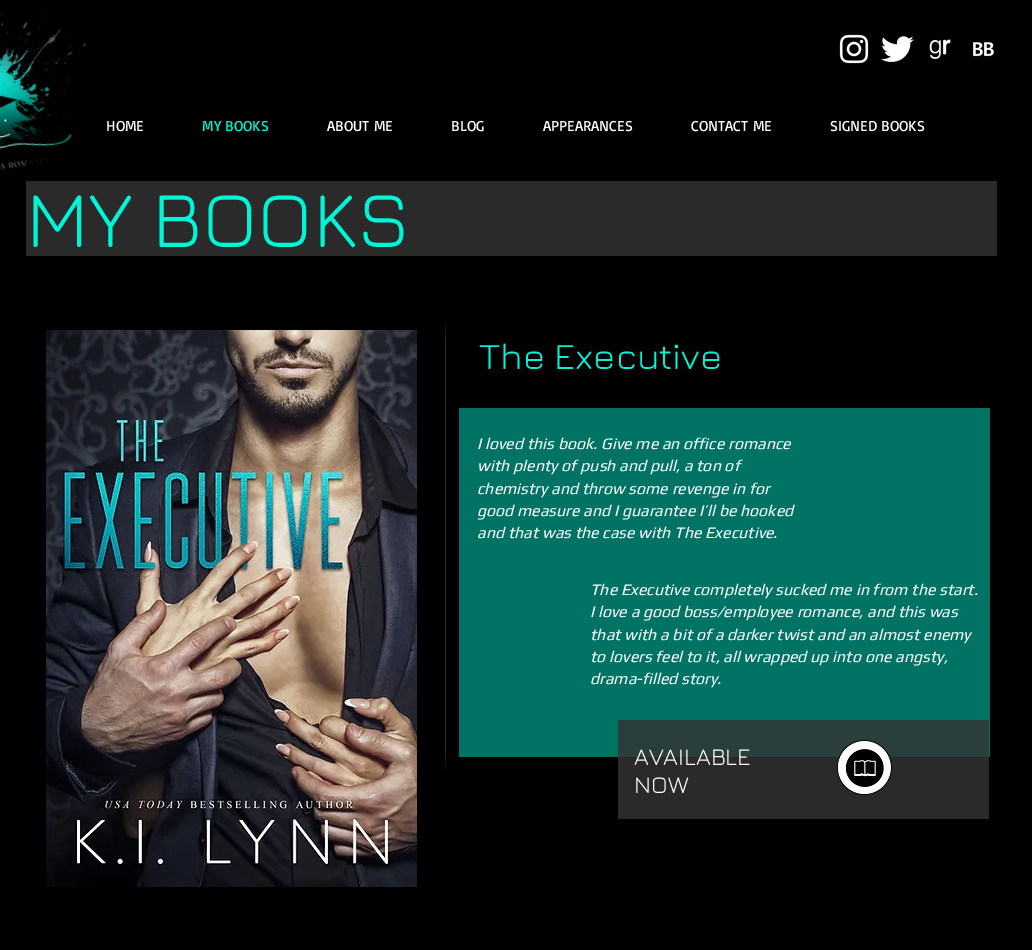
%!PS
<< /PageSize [1032 950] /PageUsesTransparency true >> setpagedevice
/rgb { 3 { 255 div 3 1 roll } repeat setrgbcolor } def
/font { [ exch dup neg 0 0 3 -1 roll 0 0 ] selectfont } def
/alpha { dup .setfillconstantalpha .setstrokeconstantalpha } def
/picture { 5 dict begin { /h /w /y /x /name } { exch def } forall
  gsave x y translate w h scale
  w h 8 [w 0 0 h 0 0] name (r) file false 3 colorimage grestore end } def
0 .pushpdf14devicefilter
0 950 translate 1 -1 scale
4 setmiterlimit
0 0 0 rgb
0 0 1032 950 rectfill
(img/1.rgb) 0 13 87 157 picture
(img/2.rgb) 839 34 30 30 picture
(img/3.rgb) 881 36 33 27 picture
(img/4.rgb) 929 39 22 21 picture
(img/5.rgb) 973 42 21 15 picture
0.85 alpha
26 157 25 10 rectfill
1 alpha
42 42 42 rgb
26 181 971 75 rectfill
(img/6.rgb) 46 330 371 557 picture
(img/7.rgb) 445 321 1 25 picture
46 46 46 rgb
445 346 1 400 rectfill
(img/8.rgb) 445 746 1 25 picture
0 115 101 rgb
459 408 531 349 rectfill
0.83 alpha
51 51 51 rgb
618 720 371 99 rectfill
1 alpha
(img/9.rgb) 837 740 55 55 picture
/Basic-Regular 15 font
255 255 255 rgb
106 131 moveto (HOME) show
0 245 215 rgb
202 131 moveto (MY BOOKS) show
255 255 255 rgb
[
  [(ABOUT ME) 327 131]
  [(BLOG) 451 131]
  [(APPEARANCES) 543 131]
  [(CONTACT ME) 691 131]
  [(SIGNED BOOKS) 830 131]
] { aload pop moveto show } forall
/Jura-Regular 80 font
0 245 215 rgb
26 247 moveto (MY BOOKS) show
/Jura-Regular 37 font
479 369 moveto (The Executive) show
/Play-Italic 16 font
255 255 255 rgb
[
  [(I loved this book. Give me an office romance) 477 449]
  [(with plenty of push and pull, a ton of) 477 471]
  [(chemistry and throw some revenge in for) 477 494]
  [(good measure and I guarantee I’ll be hooked) 477 516]
  [(and that was the case with The Executive.) 477 538]
  [(The Executive completely sucked me in from the start.) 590 595]
  [(I love a good boss/employee romance, and this was) 590 617]
  [(that with a bit of a darker twist and an almost enemy) 590 640]
  [(to lovers feel to it, all wrapped up into one angsty,) 590 662]
  [(drama-filled story.) 590 684]
] { aload pop moveto show } forall
/Jura-Regular 24 font
634 765 moveto (AVAILABLE) show
634 793 moveto (NOW) show
.poppdf14devicefilter showpage
